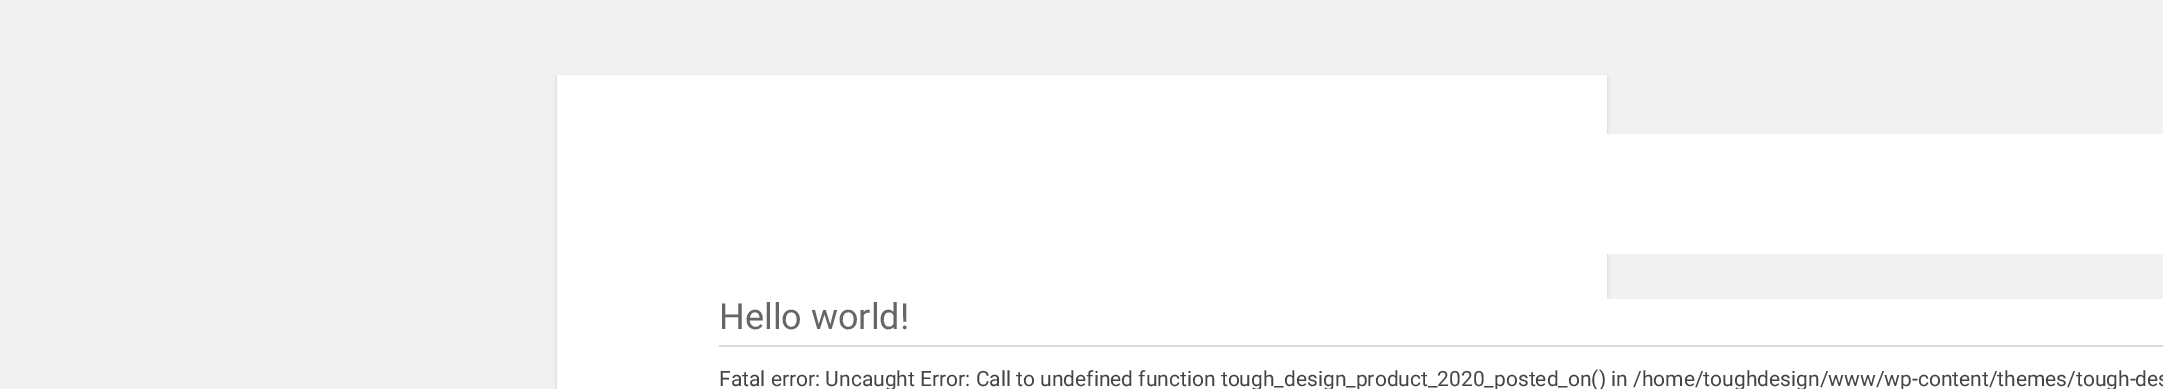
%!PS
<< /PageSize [2163 389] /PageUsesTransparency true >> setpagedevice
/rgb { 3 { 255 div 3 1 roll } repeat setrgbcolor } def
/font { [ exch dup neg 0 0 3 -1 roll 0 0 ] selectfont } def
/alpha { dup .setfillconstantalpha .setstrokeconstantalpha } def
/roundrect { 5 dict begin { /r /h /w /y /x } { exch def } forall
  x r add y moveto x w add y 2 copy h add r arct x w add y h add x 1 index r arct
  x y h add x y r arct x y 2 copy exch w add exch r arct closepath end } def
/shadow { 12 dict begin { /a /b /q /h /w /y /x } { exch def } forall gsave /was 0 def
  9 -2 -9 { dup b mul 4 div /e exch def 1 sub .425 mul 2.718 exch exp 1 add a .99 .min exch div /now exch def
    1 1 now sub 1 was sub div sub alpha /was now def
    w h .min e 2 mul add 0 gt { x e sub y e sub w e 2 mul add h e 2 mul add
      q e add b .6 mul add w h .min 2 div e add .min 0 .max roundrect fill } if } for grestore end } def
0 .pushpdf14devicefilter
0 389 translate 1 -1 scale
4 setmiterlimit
241 241 241 rgb
0 0 2163 389 rectfill
0 0 0 rgb
557 77 1050 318 0 2 0.13 shadow
[
  [557 75 1050 314 255 255 255]
  [1607 134 556 120 255 255 255]
  [1607 299 556 90 255 255 255]
  [719 345 1444 2 218 218 218]
] { aload pop rgb rectfill } forall
/Roboto-Regular 36 font
102 102 102 rgb
719 329 moveto (Hello world!) show
/Roboto-Regular 21 font
68 68 68 rgb
719 386 moveto (Fatal error: Uncaught Error: Call to undefined function tough_design_product_2020_posted_on\(\) in /home/toughdesign/www/wp-content/themes/tough-des) show
.poppdf14devicefilter showpage
